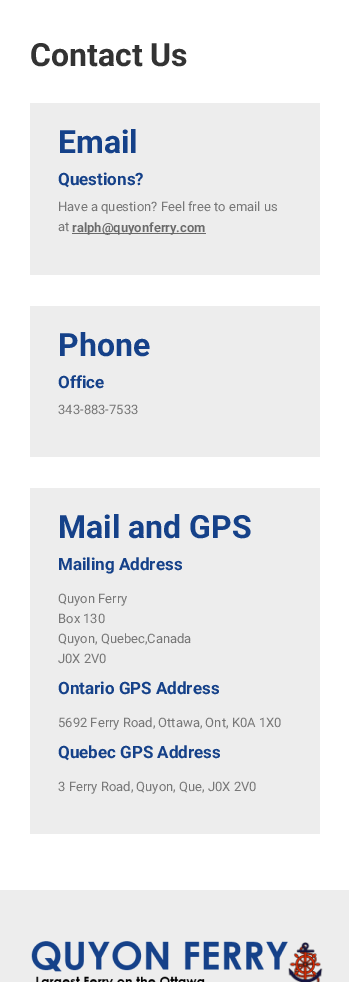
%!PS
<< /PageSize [349 982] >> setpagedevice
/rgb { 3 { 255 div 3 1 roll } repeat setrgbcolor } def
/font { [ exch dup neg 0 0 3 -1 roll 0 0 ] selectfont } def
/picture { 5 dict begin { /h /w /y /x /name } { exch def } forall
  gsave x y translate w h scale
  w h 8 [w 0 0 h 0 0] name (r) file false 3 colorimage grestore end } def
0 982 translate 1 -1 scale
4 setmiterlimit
255 255 255 rgb
0 0 349 982 rectfill
[
  [30 103 290 172 237 237 237]
  [72 233 134 1 105 105 105]
  [30 306 290 151 237 237 237]
  [30 488 290 346 237 237 237]
  [0 890 349 92 237 237 237]
] { aload pop rgb rectfill } forall
(img/1.rgb) 31 941 292 41 picture
/Roboto-Bold 32 font
51 51 51 rgb
30 66 moveto (Contact Us) show
21 65 137 rgb
58 153 moveto (Email) show
/Roboto-Bold 17 font
58 185 moveto (Questions?) show
/Roboto-Regular 13 font
119 119 119 rgb
58 211 moveto (Have a question? Feel free to email us) show
58 231 moveto (at) show
/Roboto-SemiBold 13 font
105 105 105 rgb
72 232 moveto (ralph@quyonferry.com) show
/Roboto-Bold 32 font
21 65 137 rgb
58 356 moveto (Phone) show
/Roboto-Bold 17 font
58 388 moveto (Office) show
/Roboto-Regular 13 font
119 119 119 rgb
58 414 moveto (343-883-7533) show
/Roboto-Bold 32 font
21 65 137 rgb
58 538 moveto (Mail and GPS) show
/Roboto-Bold 17 font
58 570 moveto (Mailing Address) show
/Roboto-Regular 13 font
119 119 119 rgb
[
  [(Quyon Ferry) 58 603]
  [(Box 130) 58 623]
  [(Quyon, Quebec,Canada) 58 643]
  [(J0X 2V0) 58 663]
] { aload pop moveto show } forall
/Roboto-Bold 17 font
21 65 137 rgb
58 694 moveto (Ontario GPS Address) show
/Roboto-Regular 13 font
119 119 119 rgb
58 727 moveto (5692 Ferry Road, Ottawa, Ont, K0A 1X0) show
/Roboto-Bold 17 font
21 65 137 rgb
58 758 moveto (Quebec GPS Address) show
/Roboto-Regular 13 font
119 119 119 rgb
58 791 moveto (3 Ferry Road, Quyon, Que, J0X 2V0) show
showpage
